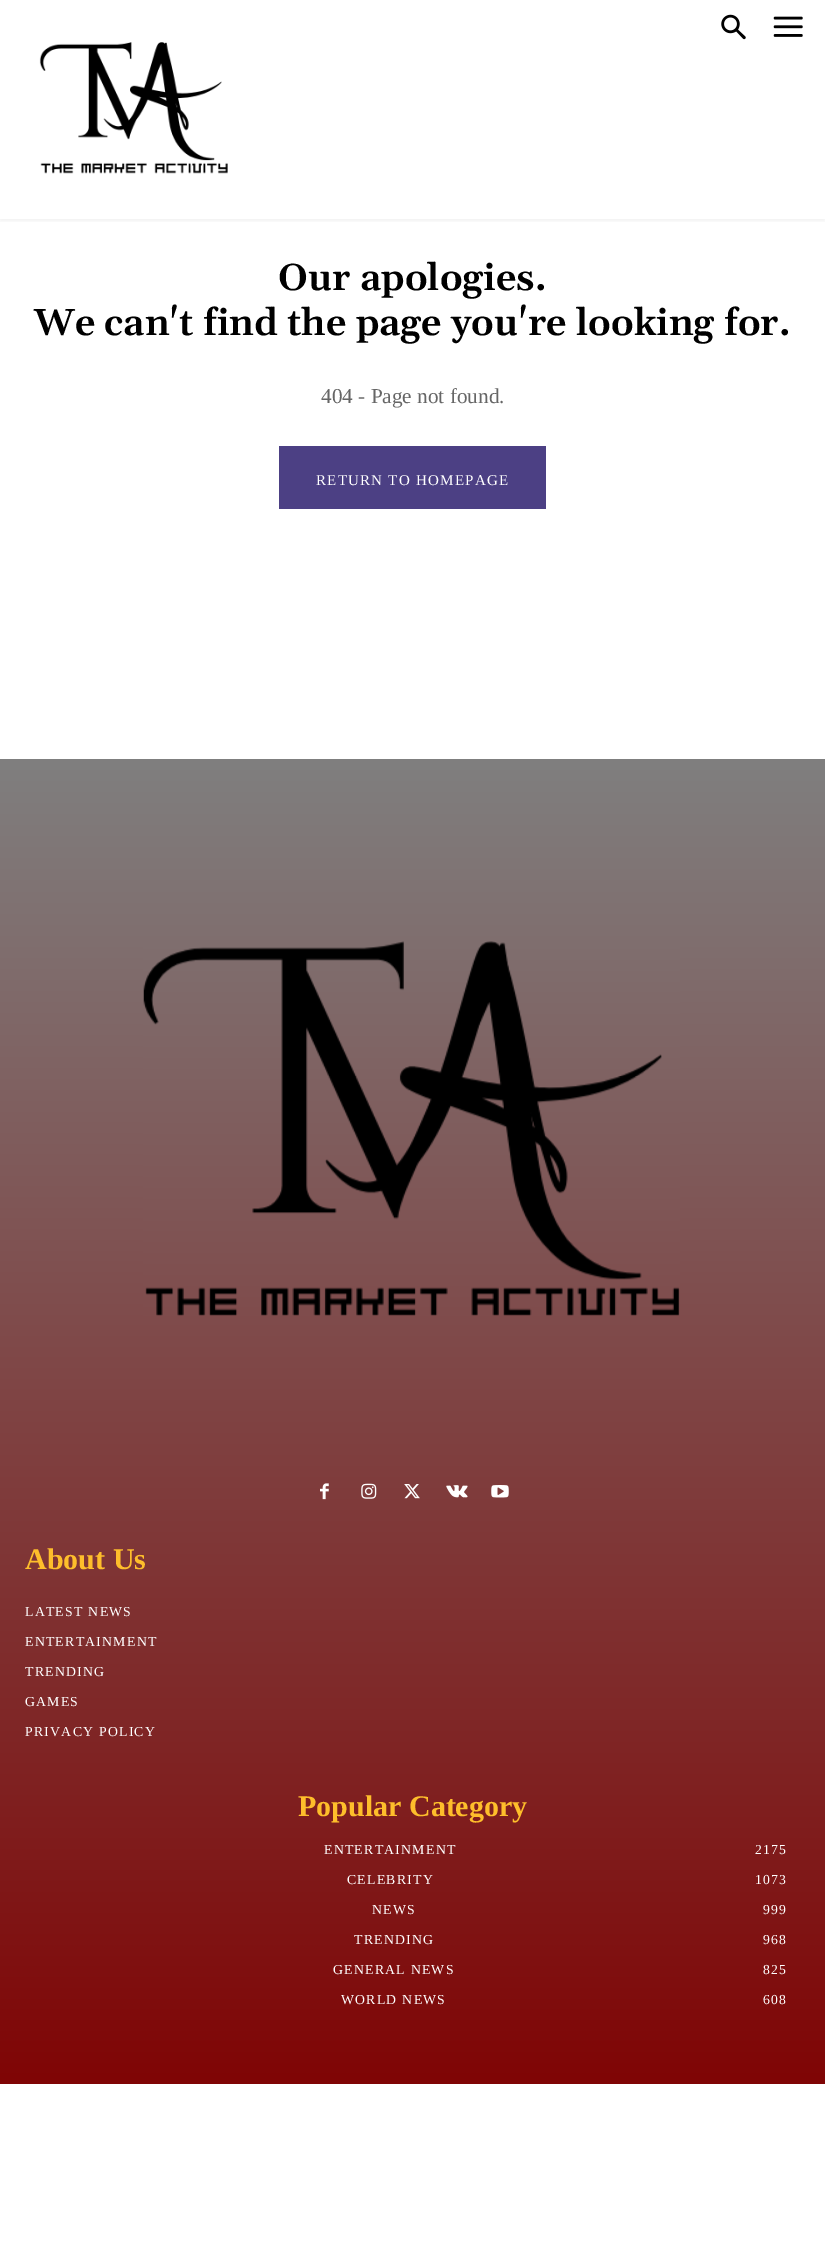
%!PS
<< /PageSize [825 2242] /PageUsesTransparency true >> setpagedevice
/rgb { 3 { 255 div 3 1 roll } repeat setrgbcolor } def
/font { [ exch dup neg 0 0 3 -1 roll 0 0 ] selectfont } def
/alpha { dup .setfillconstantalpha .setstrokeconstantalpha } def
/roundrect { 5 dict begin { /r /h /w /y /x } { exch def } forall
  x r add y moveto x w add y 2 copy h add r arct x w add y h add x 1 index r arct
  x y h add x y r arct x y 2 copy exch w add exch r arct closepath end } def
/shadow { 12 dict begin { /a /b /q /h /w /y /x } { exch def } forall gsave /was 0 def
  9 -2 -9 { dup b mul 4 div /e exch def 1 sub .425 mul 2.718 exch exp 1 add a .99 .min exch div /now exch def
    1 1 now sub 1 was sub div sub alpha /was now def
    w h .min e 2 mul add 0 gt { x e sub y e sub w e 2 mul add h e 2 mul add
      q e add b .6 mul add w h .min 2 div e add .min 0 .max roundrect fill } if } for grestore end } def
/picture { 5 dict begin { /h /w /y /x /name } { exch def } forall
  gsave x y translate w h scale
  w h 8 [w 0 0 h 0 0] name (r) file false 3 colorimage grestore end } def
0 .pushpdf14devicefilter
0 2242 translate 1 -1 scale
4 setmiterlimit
255 255 255 rgb
0 0 825 2242 rectfill
(img/1.rgb) 721 14 25 26 picture
(img/2.rgb) 773 16 30 21 picture
(img/3.rgb) 39 42 189 132 picture
gsave
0 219 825 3 rectclip
0 0 0 rgb
0 3 825 218 0 2.5 0.06 shadow
grestore
76 64 132 rgb
279 446 267 63 rectfill
gsave 0 759 moveto 825 759 lineto 825 2084 lineto 0 2084 lineto closepath clip newpath
<< /ShadingType 2 /ColorSpace /DeviceRGB /Coords [413 2084 413 759] /Extend [true true] /Function << /FunctionType 2 /Domain [0 1] /C0 [0.498 0.02 0.02] /C1 [0.498 0.498 0.498] /N 1 >> >> shfill grestore
(img/4.rgb) 143 941 537 375 picture
(img/5.rgb) 320 1483 9 17 picture
(img/6.rgb) 361 1483 16 16 picture
(img/7.rgb) 404 1484 16 15 picture
(img/8.rgb) 446 1485 22 13 picture
(img/9.rgb) 491 1485 18 13 picture
/Gelasio-SemiBold 37.5 font
0 0 0 rgb
278 290 moveto (Our apologies.) show
34 335 moveto (We can't find the page you're looking for.) show
/LiberationSerif-Regular 21.25 font
102 102 102 rgb
321 403 moveto (404 - Page not found.) show
/LiberationSerif-Regular 15 font
255 255 255 rgb
316 485 moveto 1.25 0 (RETURN TO HOMEPAGE) ashow
/LiberationSerif-Bold 30 font
254 190 43 rgb
25 1569 moveto (About Us) show
/LiberationSerif-Regular 13.75 font
255 255 255 rgb
25 1616 moveto 1.25 0 (LATEST NEWS) ashow
25 1646 moveto 1.25 0 (ENTERTAINMENT) ashow
25 1676 moveto 1.25 0 (TRENDING) ashow
25 1706 moveto 1.25 0 (GAMES) ashow
25 1736 moveto 1.25 0 (PRIVACY POLICY) ashow
/LiberationSerif-Bold 30 font
254 190 43 rgb
298 1816 moveto (Popular Category) show
/LiberationSerif-Regular 13.75 font
255 255 255 rgb
324 1854 moveto 1.25 0 (ENTERTAINMENT) ashow
755 1854 moveto 1.25 0 (2175) ashow
347 1884 moveto 1.25 0 (CELEBRITY) ashow
755 1884 moveto 1.25 0 (1073) ashow
372 1914 moveto 1.25 0 (NEWS) ashow
763 1914 moveto 1.25 0 (999) ashow
354 1944 moveto 1.25 0 (TRENDING) ashow
763 1944 moveto 1.25 0 (968) ashow
333 1974 moveto 1.25 0 (GENERAL NEWS) ashow
763 1974 moveto 1.25 0 (825) ashow
341 2004 moveto 1.25 0 (WORLD NEWS) ashow
763 2004 moveto 1.25 0 (608) ashow
.poppdf14devicefilter showpage
